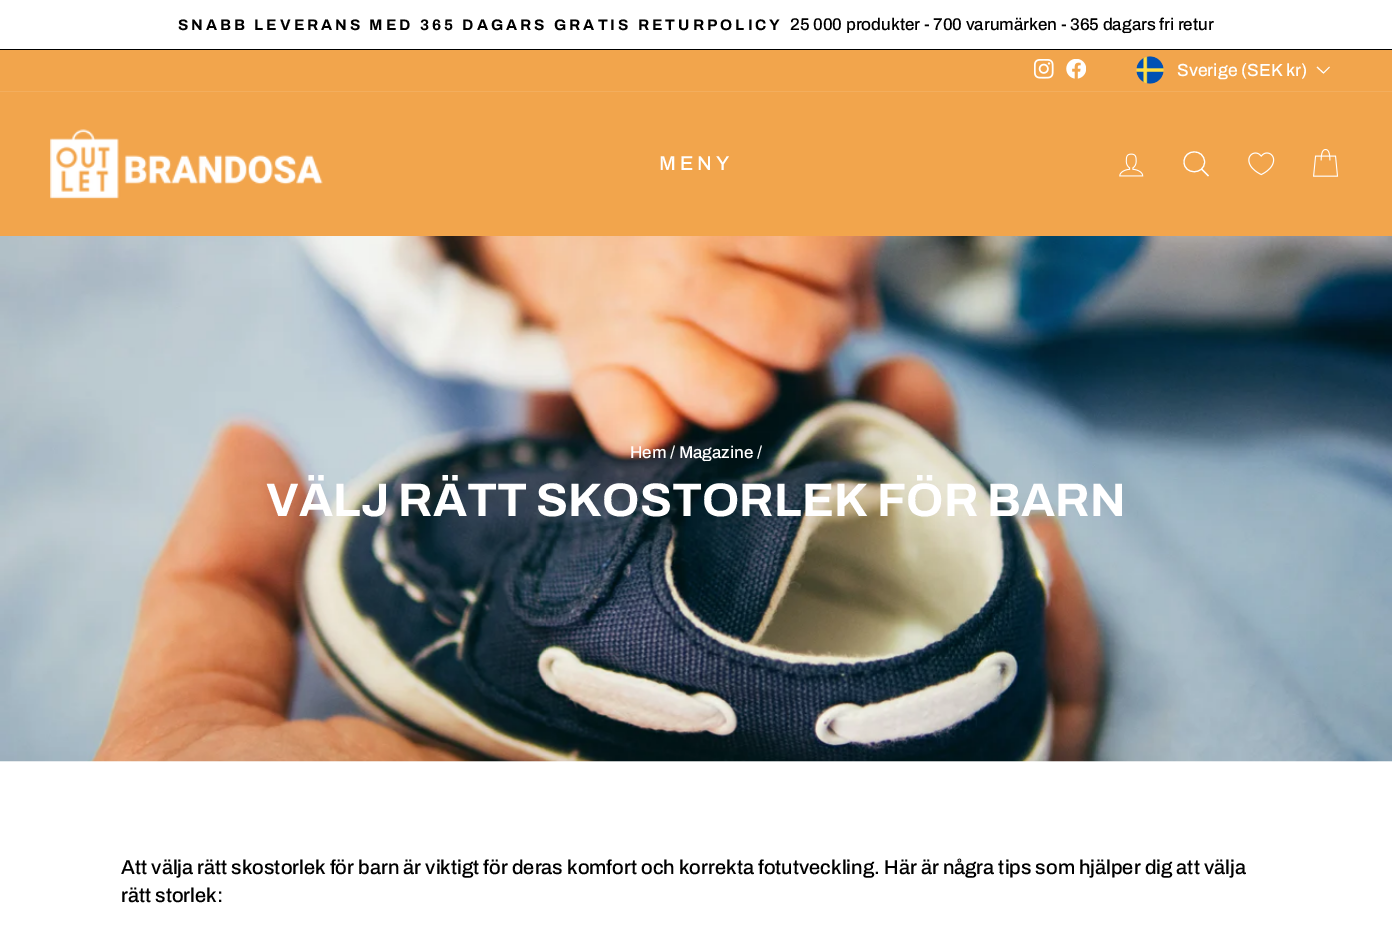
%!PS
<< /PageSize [1392 952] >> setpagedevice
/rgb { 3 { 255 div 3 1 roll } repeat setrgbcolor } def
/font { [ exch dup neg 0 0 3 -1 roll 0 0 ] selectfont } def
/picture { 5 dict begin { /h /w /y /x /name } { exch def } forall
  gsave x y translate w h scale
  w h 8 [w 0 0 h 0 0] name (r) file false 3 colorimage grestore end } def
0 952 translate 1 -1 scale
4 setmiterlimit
255 255 255 rgb
0 0 1392 952 rectfill
0 0 0 rgb
0 49 1392 1 rectfill
242 165 76 rgb
0 50 1392 41 rectfill
(img/1.rgb) 1034 59 20 20 picture
(img/2.rgb) 1066 59 20 20 picture
(img/3.rgb) 1136 56 28 28 picture
255 255 255 rgb
1317 67 moveto 1323.5 73 lineto 1329.5 67 lineto stroke
242 165 76 rgb
0 92 1392 144 rectfill
243 174 94 rgb
0 91 1392 1 rectfill
(img/4.rgb) 50 129 273 70 picture
(img/5.rgb) 1119 153 25 24 picture
255 255 255 rgb
1.1 setlinewidth
1204.5 162 moveto 1204.5 175 1184 175 1184 162 curveto 1184 148.5 1204.5 148.5 1204.5 162 curveto closepath 1208.5 176 moveto 1201.5 169 lineto stroke
(img/6.rgb) 1248 152 27 24 picture
(img/7.rgb) 1313 149 26 28 picture
(img/8.rgb) 0 236 1392 526 picture
/Archivo-Bold 15.3 font
0 0 0 rgb
178 30 moveto 3.05 0 (SNABB LEVERANS MED 365 DAGARS GRATIS RETURPOLICY) ashow
/Archivo-Medium 17 font
790 30 moveto (25 000 produkter - 700 varumärken - 365 dagars fri retur) show
/Archivo-Medium 17.5 font
255 255 255 rgb
1177 76 moveto (Sverige \(SEK kr\)) show
/Archivo-Medium 20 font
659 170 moveto 4 0 (MENY) ashow
/Archivo-Medium 17 font
630 458 moveto (Hem / Magazine /) show
/Archivo-Bold 47.1 font
266 516 moveto (VÄLJ RÄTT SKOSTORLEK FÖR BARN) show
/Archivo-Medium 20 font
0 0 0 rgb
121 874 moveto (Att välja rätt skostorlek för barn är viktigt för deras komfort och korrekta fotutveckling. Här är några tips som hjälper dig att välja) show
121 902 moveto (rätt storlek:) show
showpage
